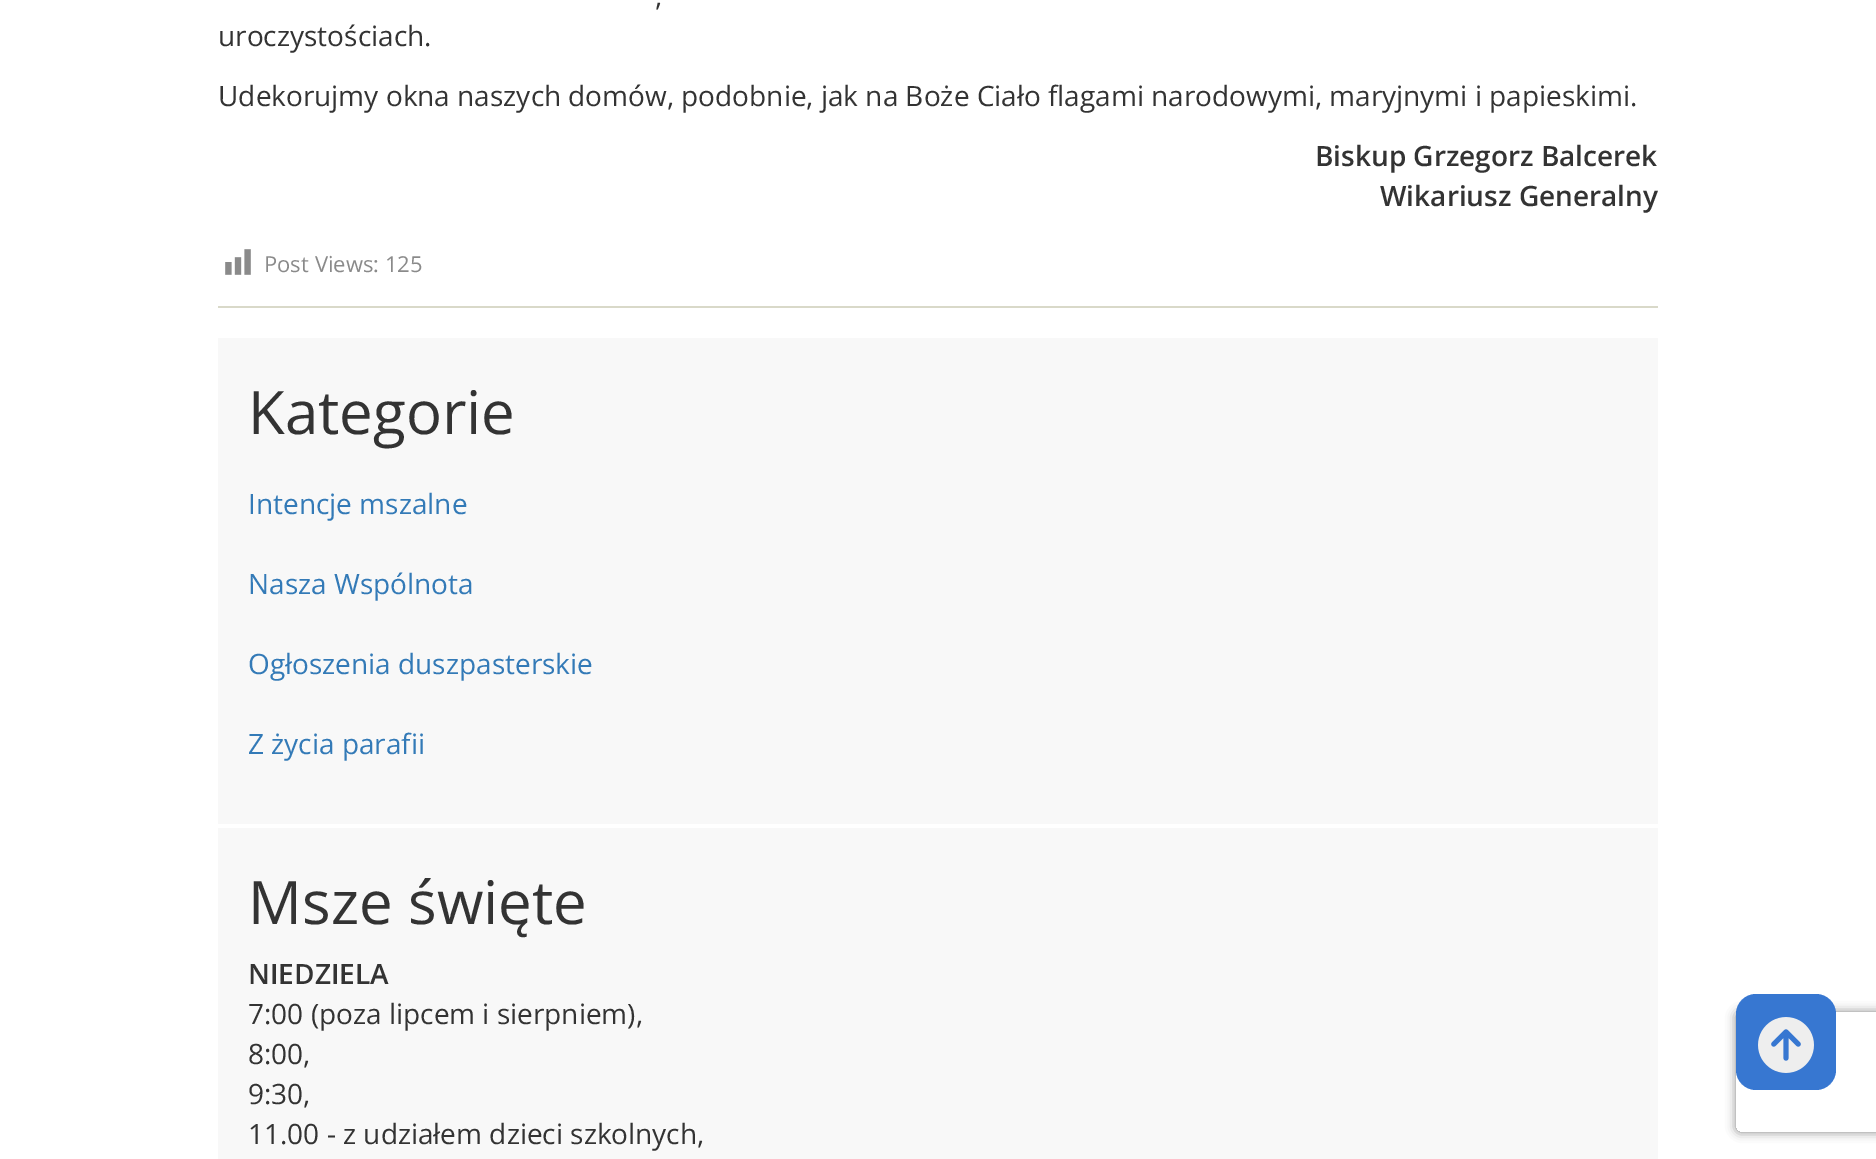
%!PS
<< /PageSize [1876 1159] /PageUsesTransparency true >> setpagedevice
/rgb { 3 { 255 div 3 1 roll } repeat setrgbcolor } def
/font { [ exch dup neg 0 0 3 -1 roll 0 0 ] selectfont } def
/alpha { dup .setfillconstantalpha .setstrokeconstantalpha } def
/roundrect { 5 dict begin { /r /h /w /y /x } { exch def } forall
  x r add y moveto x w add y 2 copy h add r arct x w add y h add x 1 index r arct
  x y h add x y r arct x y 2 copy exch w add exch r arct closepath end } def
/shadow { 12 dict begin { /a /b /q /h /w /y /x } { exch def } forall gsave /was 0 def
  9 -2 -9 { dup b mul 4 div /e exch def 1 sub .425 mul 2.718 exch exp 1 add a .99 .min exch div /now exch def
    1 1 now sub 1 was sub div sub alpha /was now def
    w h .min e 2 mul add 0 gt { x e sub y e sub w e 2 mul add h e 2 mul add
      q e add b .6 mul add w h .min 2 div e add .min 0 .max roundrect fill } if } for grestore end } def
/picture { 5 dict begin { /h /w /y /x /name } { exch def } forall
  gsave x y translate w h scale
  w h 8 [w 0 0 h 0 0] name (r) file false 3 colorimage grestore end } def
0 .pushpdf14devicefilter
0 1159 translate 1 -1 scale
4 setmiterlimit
255 255 255 rgb
0 0 1876 1159 rectfill
217 217 201 rgb
218 306 1440 2 rectfill
(img/1.rgb) 225 249 26 26 picture
248 248 248 rgb
218 338 1440 821 rectfill
255 255 255 rgb
218 824 1440 4 rectfill
gsave
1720 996 moveto 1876 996 lineto 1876 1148 lineto 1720 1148 lineto closepath 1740 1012 moveto 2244 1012 lineto 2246 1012 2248 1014 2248 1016 curveto 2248 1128 lineto 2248 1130 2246 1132 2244 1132 curveto 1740 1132 lineto 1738 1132 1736 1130 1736 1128 curveto 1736 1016 lineto 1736 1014 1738 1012 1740 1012 curveto closepath eoclip newpath
128 128 128 rgb
1736 1012 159 120 4 5 1 shadow
grestore
55 119 209 rgb
1736 994 100 96 20 roundrect fill
(img/2.rgb) 1758 1017 56 56 picture
/OpenSans-Regular 28 font
51 51 51 rgb
[
  [(,) 655 6]
  [(uroczystościach.) 218 46]
  [(Udekorujmy okna naszych domów, podobnie, jak na Boże Ciało flagami narodowymi, maryjnymi i papieskimi.) 218 106]
] { aload pop moveto show } forall
/OpenSans-SemiBold 28 font
1315 166 moveto (Biskup Grzegorz Balcerek) show
1380 206 moveto (Wikariusz Generalny) show
/OpenSans-Regular 22 font
138 138 138 rgb
264 272 moveto (Post Views: 125) show
/OpenSans-Regular 60 font
51 51 51 rgb
248 434 moveto (Kategorie) show
/OpenSans-Regular 28 font
51 122 183 rgb
[
  [(Intencje mszalne) 248 514]
  [(Nasza Wspólnota) 248 594]
  [(Ogłoszenia duszpasterskie) 248 674]
  [(Z życia parafii) 248 754]
] { aload pop moveto show } forall
/OpenSans-Regular 60 font
51 51 51 rgb
248 924 moveto (Msze święte) show
/OpenSans-SemiBold 28 font
248 984 moveto (NIEDZIELA) show
/OpenSans-Regular 28 font
[
  [(7:00 \(poza lipcem i sierpniem\),) 248 1024]
  [(8:00,) 248 1064]
  [(9:30,) 248 1104]
  [(11.00 - z udziałem dzieci szkolnych,) 248 1144]
] { aload pop moveto show } forall
.poppdf14devicefilter showpage
